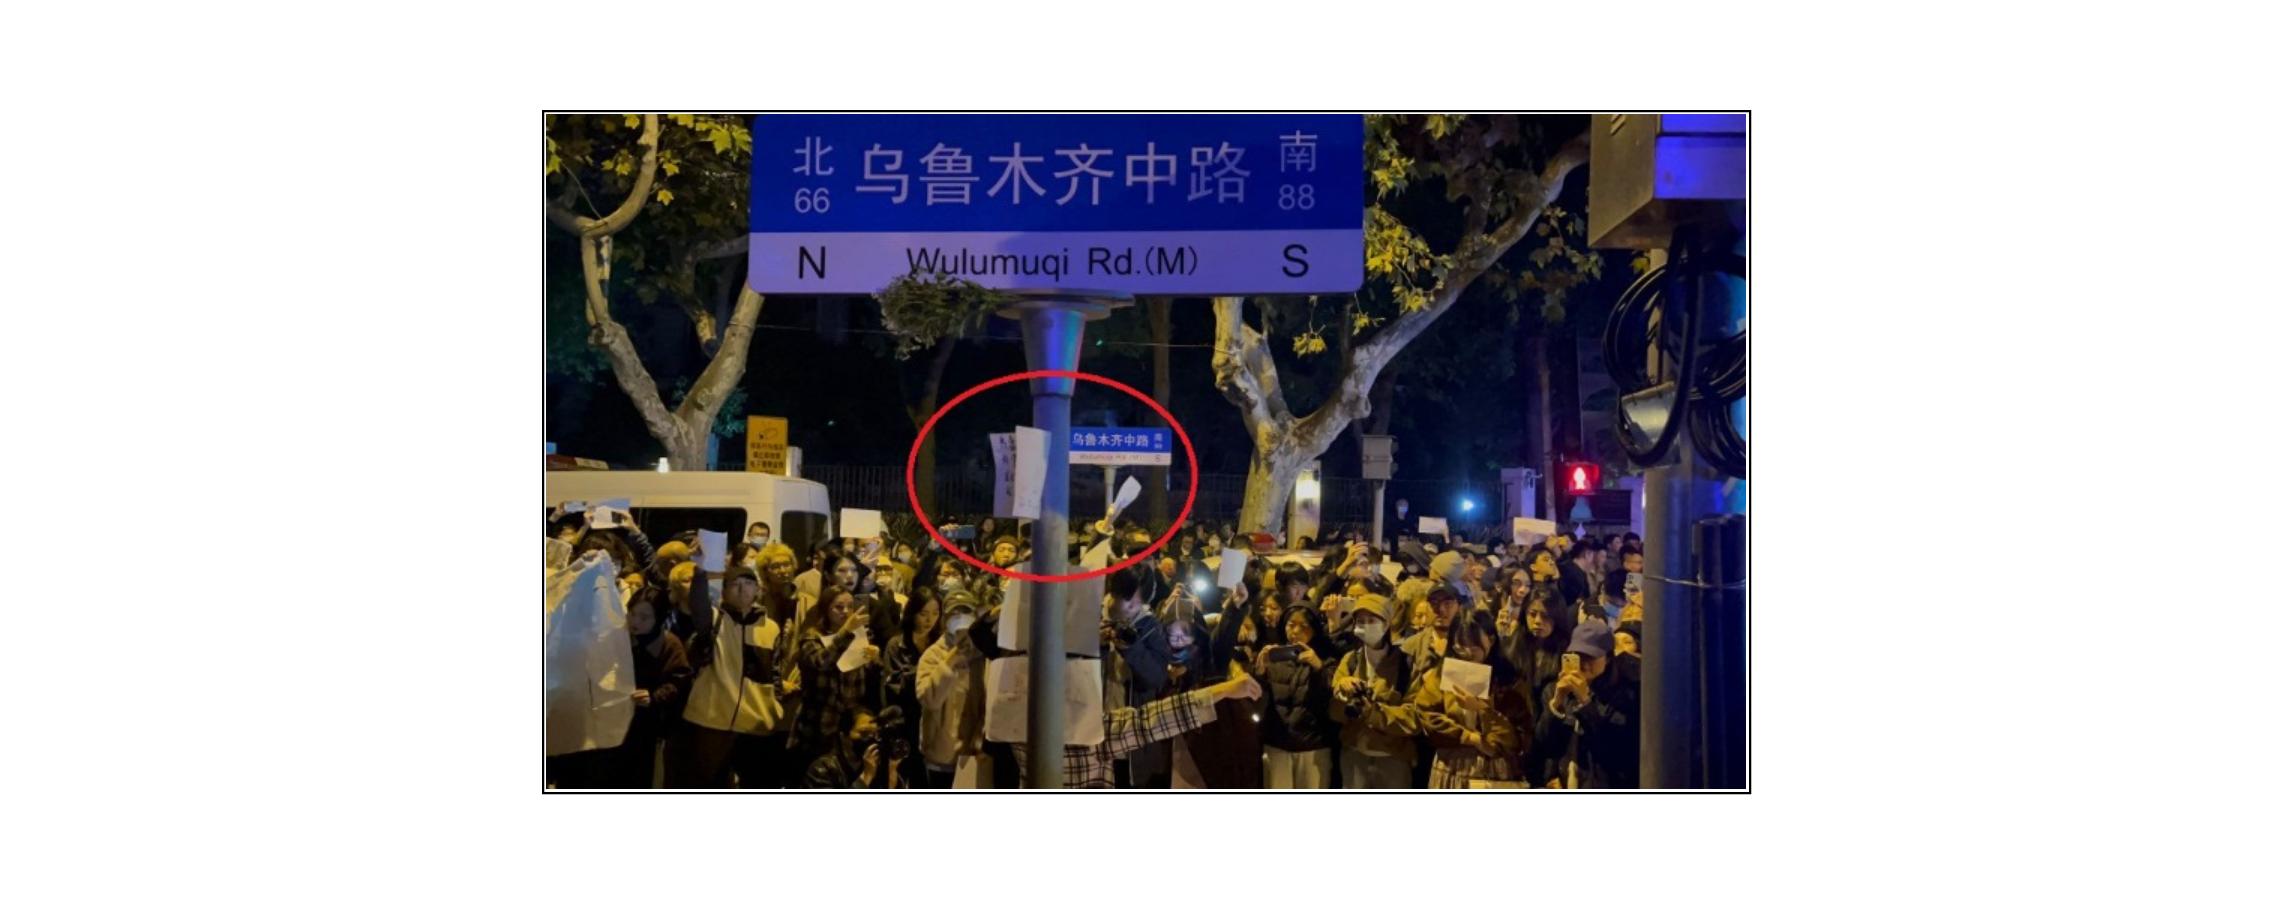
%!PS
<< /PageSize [2290 902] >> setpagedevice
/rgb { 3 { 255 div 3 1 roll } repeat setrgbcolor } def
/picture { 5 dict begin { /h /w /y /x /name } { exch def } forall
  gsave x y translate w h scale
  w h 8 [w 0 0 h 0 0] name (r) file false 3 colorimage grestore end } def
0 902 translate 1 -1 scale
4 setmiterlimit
255 255 255 rgb
0 0 2290 902 rectfill
0 0 0 rgb
2 setlinewidth
543 111 1207 682 rectstroke
(img/1.rgb) 546 114 1200 675 picture
showpage
